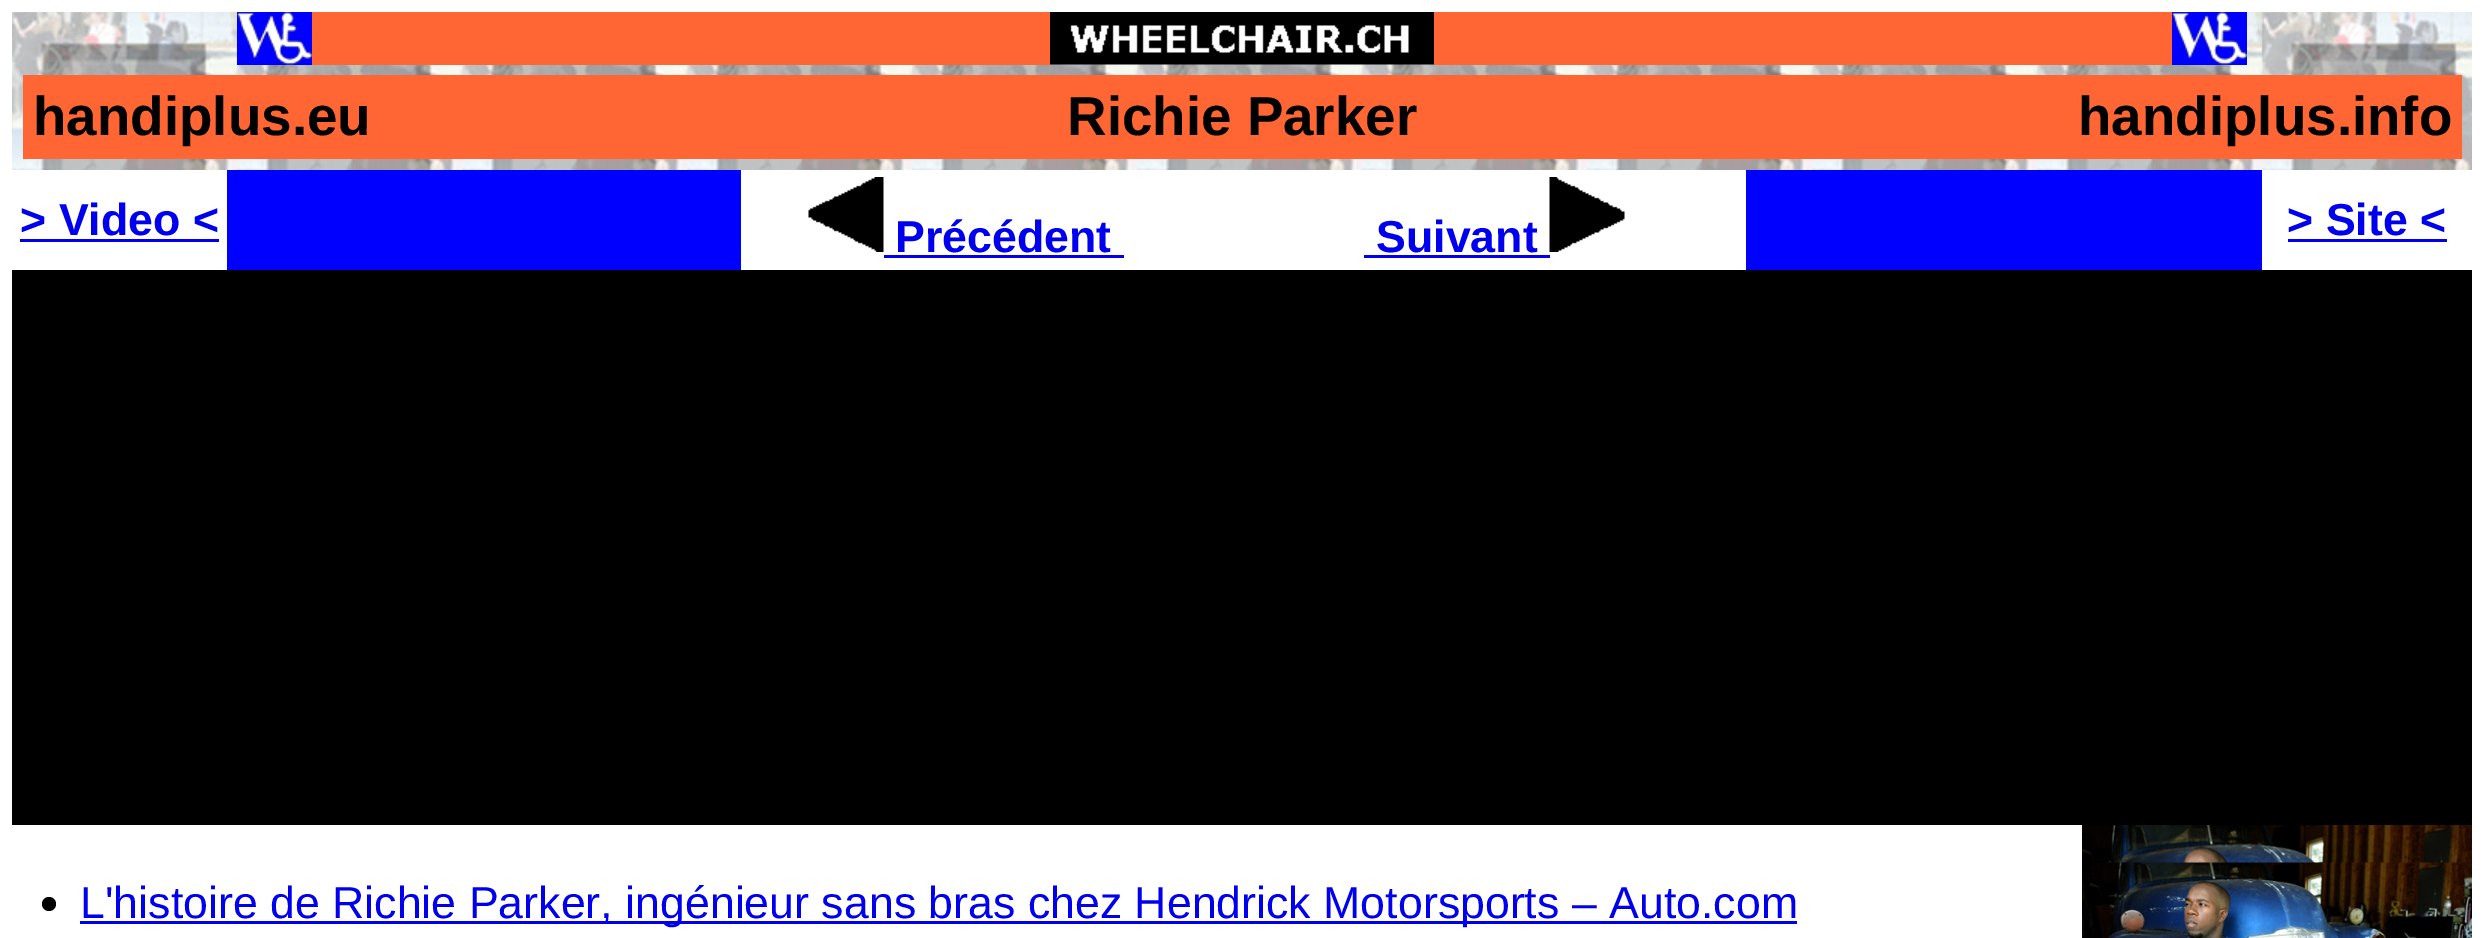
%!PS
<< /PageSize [2483 938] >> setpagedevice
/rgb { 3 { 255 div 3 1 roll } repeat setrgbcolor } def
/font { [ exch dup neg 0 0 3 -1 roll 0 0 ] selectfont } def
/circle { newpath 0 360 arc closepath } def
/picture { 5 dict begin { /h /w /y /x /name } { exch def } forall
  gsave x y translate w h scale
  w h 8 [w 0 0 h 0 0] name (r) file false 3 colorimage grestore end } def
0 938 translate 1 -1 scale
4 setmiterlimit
255 255 255 rgb
0 0 2483 938 rectfill
(img/1.rgb) 12 12 2460 158 picture
0 0 255 rgb
237 12 75 53 rectfill
(img/2.rgb) 237 12 75 53 picture
255 102 51 rgb
312 12 738 53 rectfill
(img/3.rgb) 1050 12 384 53 picture
1434 12 738 53 rectfill
0 0 255 rgb
2172 12 75 53 rectfill
(img/2.rgb) 2172 12 75 53 picture
[
  [23 75 2439 84 255 102 51]
  [20 239 199 3 0 0 238]
  [227 170 514 100 0 0 255]
] { aload pop rgb rectfill } forall
(img/4.rgb) 808 177 76 75 picture
0 0 238 rgb
884 255 240 3 rectfill
1364 255 186 3 rectfill
(img/5.rgb) 1549 177 76 75 picture
[
  [1746 170 516 100 0 0 255]
  [2288 239 159 3 0 0 238]
  [12 270 2460 555 0 0 0]
] { aload pop rgb rectfill } forall
49 904 7 circle fill
0 0 238 rgb
80 921 1717 3 rectfill
(img/6.rgb) 2082 825 390 113 picture
(img/7.rgb) 2089 862 376 76 picture
/LiberationSans-Bold 54.75 font
0 0 0 rgb
[
  [(handiplus.eu) 33 135]
  [(Richie Parker) 1067 135]
  [(handiplus.info) 2078 135]
] { aload pop moveto show } forall
/LiberationSans-Bold 44.7 font
0 0 238 rgb
[
  [(> Video <) 20 235]
  [(Précédent) 895 252]
  [(Suivant) 1376 252]
  [(> Site <) 2287 235]
] { aload pop moveto show } forall
/LiberationSans-Regular 44.7 font
80 918 moveto (L'histoire de Richie Parker, ingénieur sans bras chez Hendrick Motorsports – Auto.com) show
showpage
